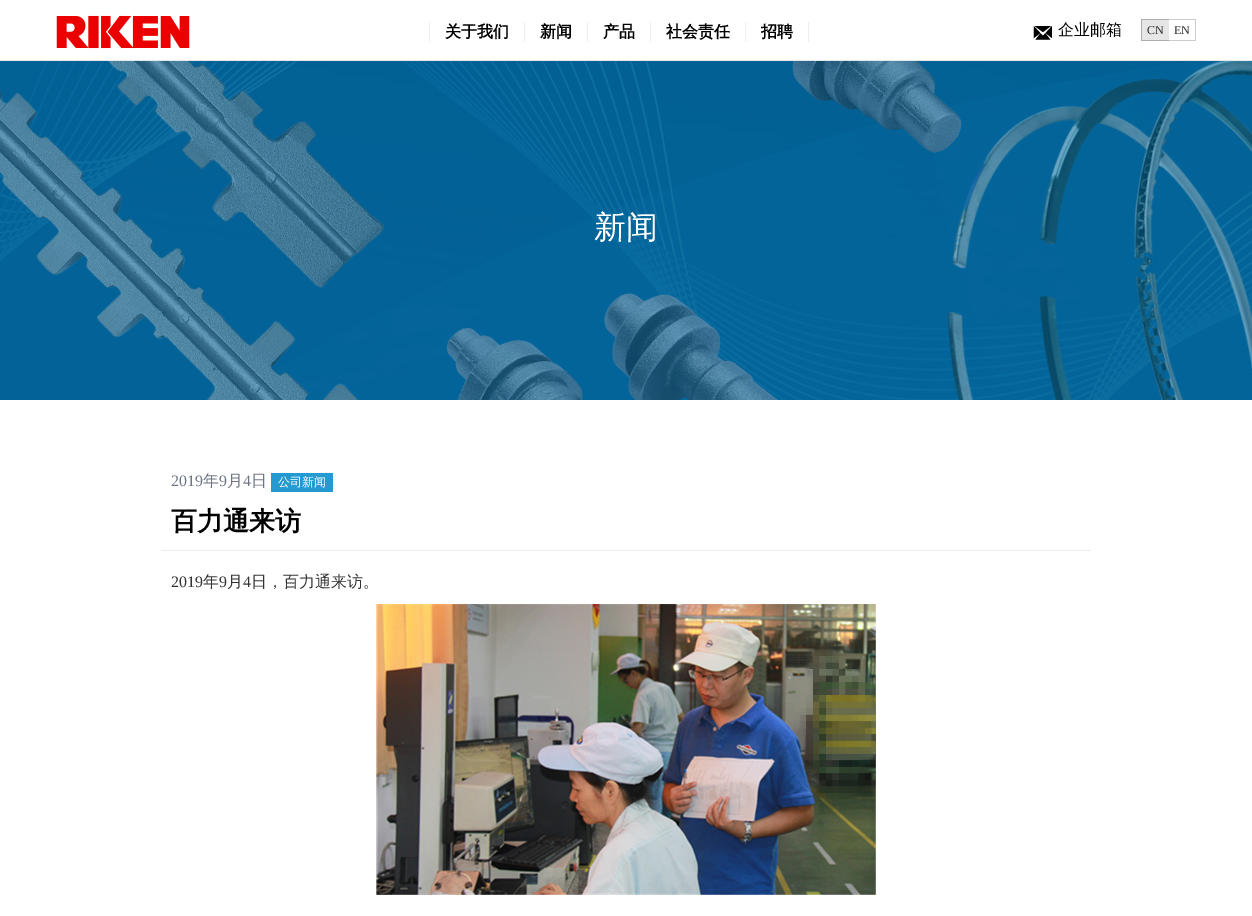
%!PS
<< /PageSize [1252 916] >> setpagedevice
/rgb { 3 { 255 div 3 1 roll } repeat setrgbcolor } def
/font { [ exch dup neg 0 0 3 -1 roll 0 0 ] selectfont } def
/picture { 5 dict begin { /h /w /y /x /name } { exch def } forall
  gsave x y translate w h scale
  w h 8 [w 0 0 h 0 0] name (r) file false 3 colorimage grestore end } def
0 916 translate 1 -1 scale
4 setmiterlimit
255 255 255 rgb
0 0 1252 916 rectfill
231 231 231 rgb
0 60 1252 1 rectfill
(img/1.rgb) 56 15 134 34 picture
[
  [524 22 1 20 238 238 238]
  [429 22 1 20 238 238 238]
  [587 22 1 20 238 238 238]
  [650 22 1 20 238 238 238]
  [745 22 1 20 238 238 238]
  [808 22 1 20 238 238 238]
] { aload pop rgb rectfill } forall
(img/2.rgb) 1033 26 19 14 picture
[
  [1142 20 27 20 230 230 230]
  [1141 19 28 1 173 173 173]
  [1141 40 28 1 173 173 173]
  [1141 19 1 22 173 173 173]
  [1169 19 27 1 204 204 204]
  [1195 19 1 22 204 204 204]
  [1169 40 27 1 204 204 204]
] { aload pop rgb rectfill } forall
(img/3.rgb) 0 61 1252 339 picture
236 236 236 rgb
161 550 930 1 rectfill
37 154 209 rgb
271 473 62 19 rectfill
(img/4.rgb) 376 604 500 291 picture
/WenQuanYiZenHei-Bold 16 font
0 0 0 rgb
[
  [(关于我们) 445 37]
  [(新闻) 540 37]
  [(产品) 603 37]
  [(社会责任) 666 37]
  [(招聘) 761 37]
] { aload pop moveto show } forall
/WenQuanYiZenHei-Medium 16 font
1058 35 moveto (企业邮箱) show
/LiberationSerif-Regular 12 font
51 51 51 rgb
1147 34 moveto (CN) show
1174 34 moveto (EN) show
/WenQuanYiZenHei-Medium 32 font
255 255 255 rgb
594 238 moveto (新闻) show
/LiberationSerif-Regular 16 font
110 118 134 rgb
171 486 moveto (2019) show
/WenQuanYiZenHei-Medium 16 font
203 486 moveto (年) show
/LiberationSerif-Regular 16 font
219 486 moveto (9) show
/WenQuanYiZenHei-Medium 16 font
227 486 moveto (月) show
/LiberationSerif-Regular 16 font
243 486 moveto (4) show
/WenQuanYiZenHei-Medium 16 font
251 486 moveto (日) show
/WenQuanYiZenHei-Medium 12 font
255 255 255 rgb
278 486 moveto (公司新闻) show
/WenQuanYiZenHei-Bold 26 font
0 0 0 rgb
171 530 moveto (百力通来访) show
/LiberationSerif-Regular 16 font
51 51 51 rgb
171 587 moveto (2019) show
/WenQuanYiZenHei-Medium 16 font
203 587 moveto (年) show
/LiberationSerif-Regular 16 font
219 587 moveto (9) show
/WenQuanYiZenHei-Medium 16 font
227 587 moveto (月) show
/LiberationSerif-Regular 16 font
243 587 moveto (4) show
/WenQuanYiZenHei-Medium 16 font
251 587 moveto (日，百力通来访。) show
showpage
